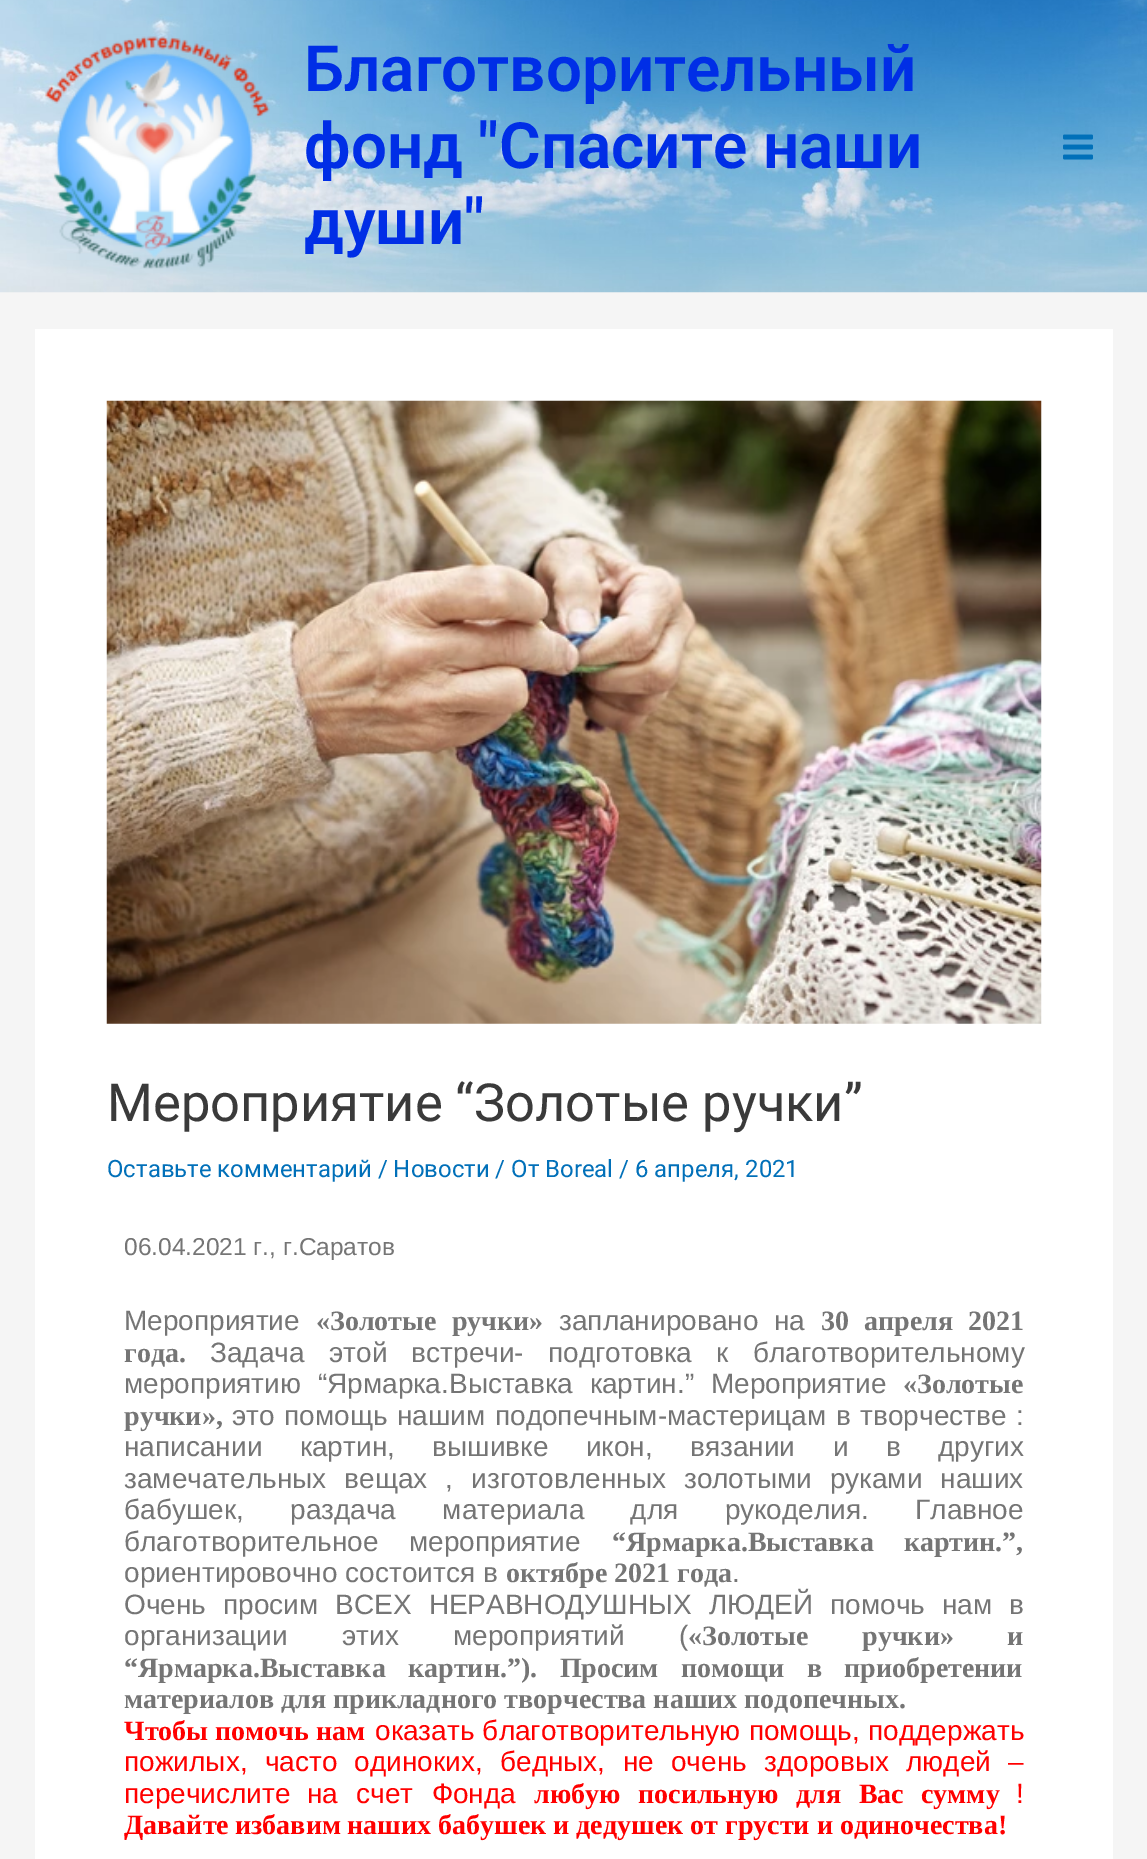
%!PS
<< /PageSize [1147 1859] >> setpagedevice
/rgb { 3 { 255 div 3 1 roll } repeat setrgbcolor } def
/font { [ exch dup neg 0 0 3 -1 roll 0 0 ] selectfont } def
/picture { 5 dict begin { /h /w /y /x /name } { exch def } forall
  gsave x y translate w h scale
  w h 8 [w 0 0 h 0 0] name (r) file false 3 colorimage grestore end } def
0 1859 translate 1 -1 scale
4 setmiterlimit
245 245 245 rgb
0 0 1147 1859 rectfill
(img/1.rgb) 0 0 1147 293 picture
(img/2.rgb) 45 36 225 233 picture
(img/3.rgb) 1063 134 30 26 picture
255 255 255 rgb
35 329 1078 1530 rectfill
(img/4.rgb) 106 400 936 624 picture
/Roboto-SemiBold 63.75 font
0 46 230 rgb
[
  [(Благотворительный) 304 91]
  [(фонд "Спасите наши) 304 168]
  [(души") 304 244]
] { aload pop moveto show } forall
/Roboto-Regular 52.5 font
58 58 58 rgb
107 1121 moveto (Мероприятие “Золотые ручки”) show
/Roboto-Regular 23.95 font
1 112 185 rgb
107 1177 moveto (Оставьте комментарий / Новости / От Boreal / 6 апреля, 2021) show
/LiberationSans-Regular 24.5 font
117 117 117 rgb
124 1255 moveto (06.04.2021 г., г.Саратов) show
/LiberationSans-Regular 28 font
124 1330 moveto (Мероприятие) show
/LiberationSerif-Bold 28 font
316 1330 moveto 8 0 32 («Золотые ручки») widthshow
/LiberationSans-Regular 28 font
559 1330 moveto 8 0 32 (запланировано на) widthshow
/LiberationSerif-Bold 28 font
821 1330 moveto 8 0 32 (30 апреля 2021) widthshow
124 1362 moveto (года.) show
/LiberationSans-Regular 28 font
210 1362 moveto 16.5 0 32 (Задача этой встречи- подготовка к благотворительному) widthshow
124 1393 moveto 9 0 32 (мероприятию “Ярмарка.Выставка картин.” Мероприятие) widthshow
/LiberationSerif-Bold 28 font
903 1393 moveto («Золотые) show
124 1425 moveto (ручки»,) show
/LiberationSans-Regular 28 font
232 1425 moveto 1.75 0 32 (это помощь нашим подопечным-мастерицам в творчестве :) widthshow
124 1456 moveto 29.75 0 32 (написании картин, вышивке икон, вязании и в других) widthshow
124 1488 moveto 10.25 0 32 (замечательных вещах , изготовленных золотыми руками наших) widthshow
124 1519 moveto 38.5 0 32 (бабушек, раздача материала для рукоделия. Главное) widthshow
124 1551 moveto 23 0 32 (благотворительное мероприятие) widthshow
/LiberationSerif-Bold 28 font
612 1551 moveto 23 0 32 (“Ярмарка.Выставка картин.”,) widthshow
/LiberationSans-Regular 28 font
124 1582 moveto (ориентировочно состоится в) show
/LiberationSerif-Bold 28 font
506 1582 moveto (октябре 2021 года) show
/LiberationSans-Regular 28 font
732 1582 moveto (.) show
124 1614 moveto 9.25 0 32 (Очень просим ВСЕХ НЕРАВНОДУШНЫХ ЛЮДЕЙ помочь нам в) widthshow
124 1645 moveto 46.5 0 32 (организации этих мероприятий \() widthshow
/LiberationSerif-Bold 28 font
688 1645 moveto 46.5 0 32 («Золотые ручки» и) widthshow
124 1677 moveto 15.5 0 32 (“Ярмарка.Выставка картин.”\). Просим помощи в приобретении) widthshow
124 1708 moveto (материалов для прикладного творчества наших подопечных.) show
255 0 0 rgb
124 1740 moveto (Чтобы помочь нам) show
/LiberationSans-Regular 28 font
375 1740 moveto 0.5 0 32 (оказать благотворительную помощь, поддержать) widthshow
124 1771 moveto 9.5 0 32 (пожилых, часто одиноких, бедных, не очень здоровых людей –) widthshow
124 1803 moveto (перечислите) show
307 1803 moveto 10.5 0 32 (на счет Фонда) widthshow
/LiberationSerif-Bold 28 font
534 1803 moveto 10.5 0 32 (любую посильную для Вас) widthshow
921 1803 moveto (сумму) show
/LiberationSans-Regular 28 font
1016 1803 moveto (!) show
/LiberationSerif-Bold 28 font
[
  [(Давайте) 124 1834]
  [(избавим) 235 1834]
  [(наших бабушек и дедушек от грусти и одиночества!) 347 1834]
] { aload pop moveto show } forall
showpage
